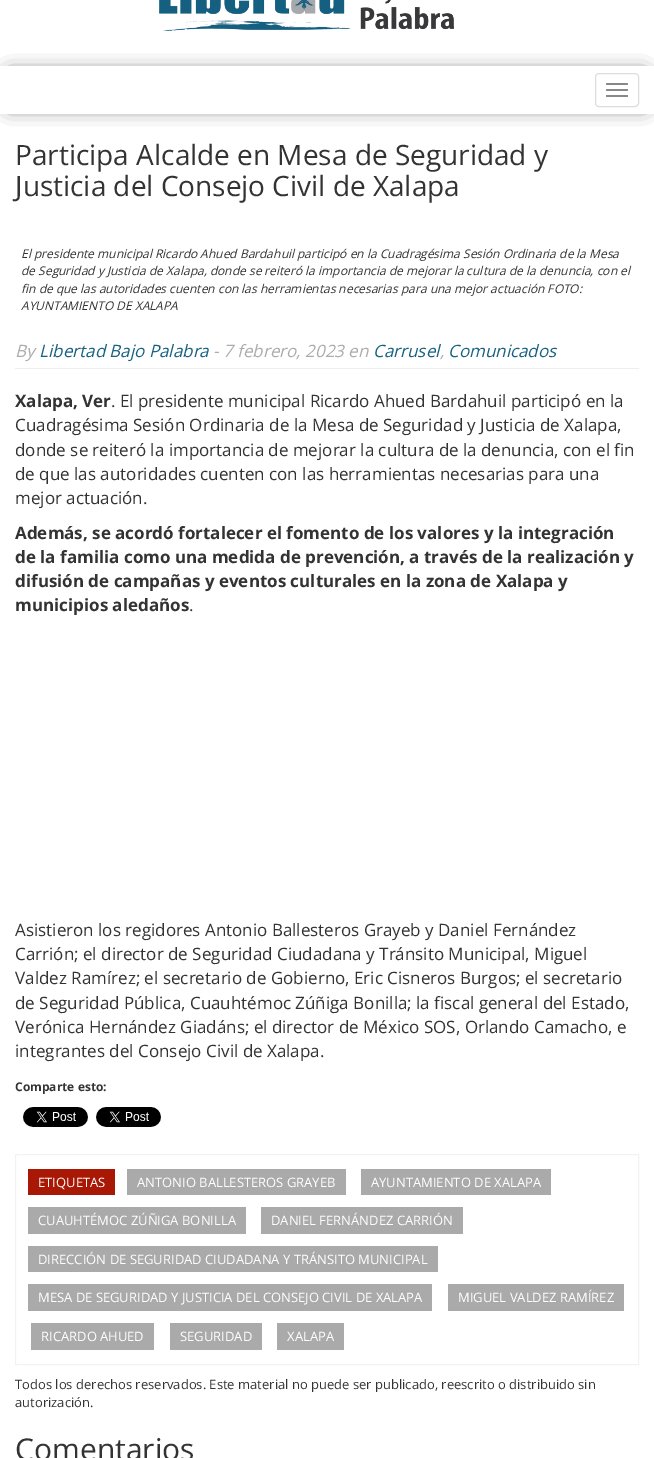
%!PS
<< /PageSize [654 1458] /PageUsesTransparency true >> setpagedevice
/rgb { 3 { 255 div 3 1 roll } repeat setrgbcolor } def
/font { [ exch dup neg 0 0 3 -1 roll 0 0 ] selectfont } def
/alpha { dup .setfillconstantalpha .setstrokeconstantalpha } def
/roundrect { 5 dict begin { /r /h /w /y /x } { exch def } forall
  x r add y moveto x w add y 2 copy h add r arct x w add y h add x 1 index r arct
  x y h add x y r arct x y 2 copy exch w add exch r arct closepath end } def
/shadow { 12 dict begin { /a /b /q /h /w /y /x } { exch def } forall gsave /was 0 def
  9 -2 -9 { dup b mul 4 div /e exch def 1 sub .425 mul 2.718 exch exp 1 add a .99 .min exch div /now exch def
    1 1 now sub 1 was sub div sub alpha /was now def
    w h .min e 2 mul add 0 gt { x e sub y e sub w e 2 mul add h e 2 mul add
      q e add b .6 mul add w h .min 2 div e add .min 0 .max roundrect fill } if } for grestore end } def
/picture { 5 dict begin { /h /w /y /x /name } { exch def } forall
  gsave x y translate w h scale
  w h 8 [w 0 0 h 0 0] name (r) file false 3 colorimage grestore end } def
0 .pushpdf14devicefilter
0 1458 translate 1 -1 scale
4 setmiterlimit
255 255 255 rgb
0 0 654 1458 rectfill
(img/1.rgb) 159 0 295 31 picture
gsave
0 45 moveto 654 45 lineto 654 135 lineto 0 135 lineto closepath 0 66 moveto 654 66 lineto 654 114 lineto 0 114 lineto closepath eoclip newpath
0 0 0 rgb
10 76 634 28 0 10 1 shadow
grestore
221 221 221 rgb
595.5 73.5 43 33 3.5 roundrect stroke
136 136 136 rgb
606 83 22 2 1 roundrect fill
606 89 22 2 1 roundrect fill
606 95 22 2 1 roundrect fill
238 238 238 rgb
15 368 624 1 rectfill
(img/2.rgb) 23 1107 65 20 picture
(img/3.rgb) 96 1107 65 20 picture
242 242 242 rgb
15.5 1154.5 623 210 rectstroke
[
  [127 1169 219 26 170 170 170]
  [361 1169 190 26 170 170 170]
  [28 1207 218 27 170 170 170]
  [261 1207 202 27 170 170 170]
  [28 1246 410 26 170 170 170]
  [28 1284 404 27 170 170 170]
  [448 1284 176 27 170 170 170]
  [31 1323 123 27 170 170 170]
  [170 1323 92 27 170 170 170]
  [277 1323 67 27 170 170 170]
  [28 1169 87 26 168 24 5]
] { aload pop rgb rectfill } forall
/OpenSans-Regular 28 font
51 51 51 rgb
15 165 moveto (Participa Alcalde en Mesa de Seguridad y) show
15 196 moveto (Justicia del Consejo Civil de Xalapa) show
/OpenSans-Italic 12 font
[
  [(El presidente municipal Ricardo Ahued Bardahuil participó en la Cuadragésima Sesión Ordinaria de la Mesa) 21 258]
  [(de Seguridad y Justicia de Xalapa, donde se reiteró la importancia de mejorar la cultura de la denuncia, con el) 21 275]
  [(fin de que las autoridades cuenten con las herramientas necesarias para una mejor actuación FOTO:) 21 293]
  [(AYUNTAMIENTO DE XALAPA) 21 310]
] { aload pop moveto show } forall
/OpenSans-Italic 17 font
171 171 171 rgb
15 357 moveto (By) show
22 97 130 rgb
39 357 moveto (Libertad Bajo Palabra) show
171 171 171 rgb
213 357 moveto (- 7 febrero, 2023 en) show
22 97 130 rgb
373 357 moveto (Carrusel) show
448 357 moveto (Comunicados) show
171 171 171 rgb
440 357 moveto (,) show
/OpenSans-Bold 17 font
51 51 51 rgb
15 407 moveto (Xalapa, Ver) show
/OpenSans-Regular 17 font
[
  [(. El presidente municipal Ricardo Ahued Bardahuil participó en la) 111 407]
  [(Cuadragésima Sesión Ordinaria de la Mesa de Seguridad y Justicia de Xalapa,) 15 431]
  [(donde se reiteró la importancia de mejorar la cultura de la denuncia, con el fin) 15 456]
  [(de que las autoridades cuenten con las herramientas necesarias para una) 15 480]
  [(mejor actuación.) 15 504]
] { aload pop moveto show } forall
/OpenSans-Bold 17 font
[
  [(Además, se acordó fortalecer el fomento de los valores y la integración) 15 539]
  [(de la familia como una medida de prevención, a través de la realización y) 15 563]
  [(difusión de campañas y eventos culturales en la zona de Xalapa y) 15 587]
  [(municipios aledaños) 15 611]
] { aload pop moveto show } forall
/OpenSans-Regular 17 font
[
  [(.) 189 611]
  [(Asistieron los regidores Antonio Ballesteros Grayeb y Daniel Fernández) 15 936]
  [(Carrión; el director de Seguridad Ciudadana y Tránsito Municipal, Miguel) 15 960]
  [(Valdez Ramírez; el secretario de Gobierno, Eric Cisneros Burgos; el secretario) 15 984]
  [(de Seguridad Pública, Cuauhtémoc Zúñiga Bonilla; la fiscal general del Estado,) 15 1009]
  [(Verónica Hernández Giadáns; el director de México SOS, Orlando Camacho, e) 15 1033]
  [(integrantes del Consejo Civil de Xalapa.) 15 1057]
] { aload pop moveto show } forall
/OpenSans-Bold 12 font
15 1091 moveto (Comparte esto:) show
/OpenSans-Regular 13 font
255 255 255 rgb
[
  [(ANTONIO BALLESTEROS GRAYEB) 137 1187]
  [(AYUNTAMIENTO DE XALAPA) 371 1187]
  [(CUAUHTÉMOC ZÚÑIGA BONILLA) 38 1225]
  [(DANIEL FERNÁNDEZ CARRIÓN) 271 1225]
  [(DIRECCIÓN DE SEGURIDAD CIUDADANA Y TRÁNSITO MUNICIPAL) 38 1264]
  [(MESA DE SEGURIDAD Y JUSTICIA DEL CONSEJO CIVIL DE XALAPA) 38 1302]
  [(MIGUEL VALDEZ RAMÍREZ) 458 1302]
  [(RICARDO AHUED) 41 1341]
  [(SEGURIDAD) 180 1341]
  [(XALAPA) 287 1341]
  [(ETIQUETAS) 38 1187]
] { aload pop moveto show } forall
51 51 51 rgb
15 1389 moveto (Todos los derechos reservados. Este material no puede ser publicado, reescrito o distribuido sin) show
15 1407 moveto (autorización.) show
/OpenSans-Regular 30 font
15 1460 moveto (Comentarios) show
.poppdf14devicefilter showpage
